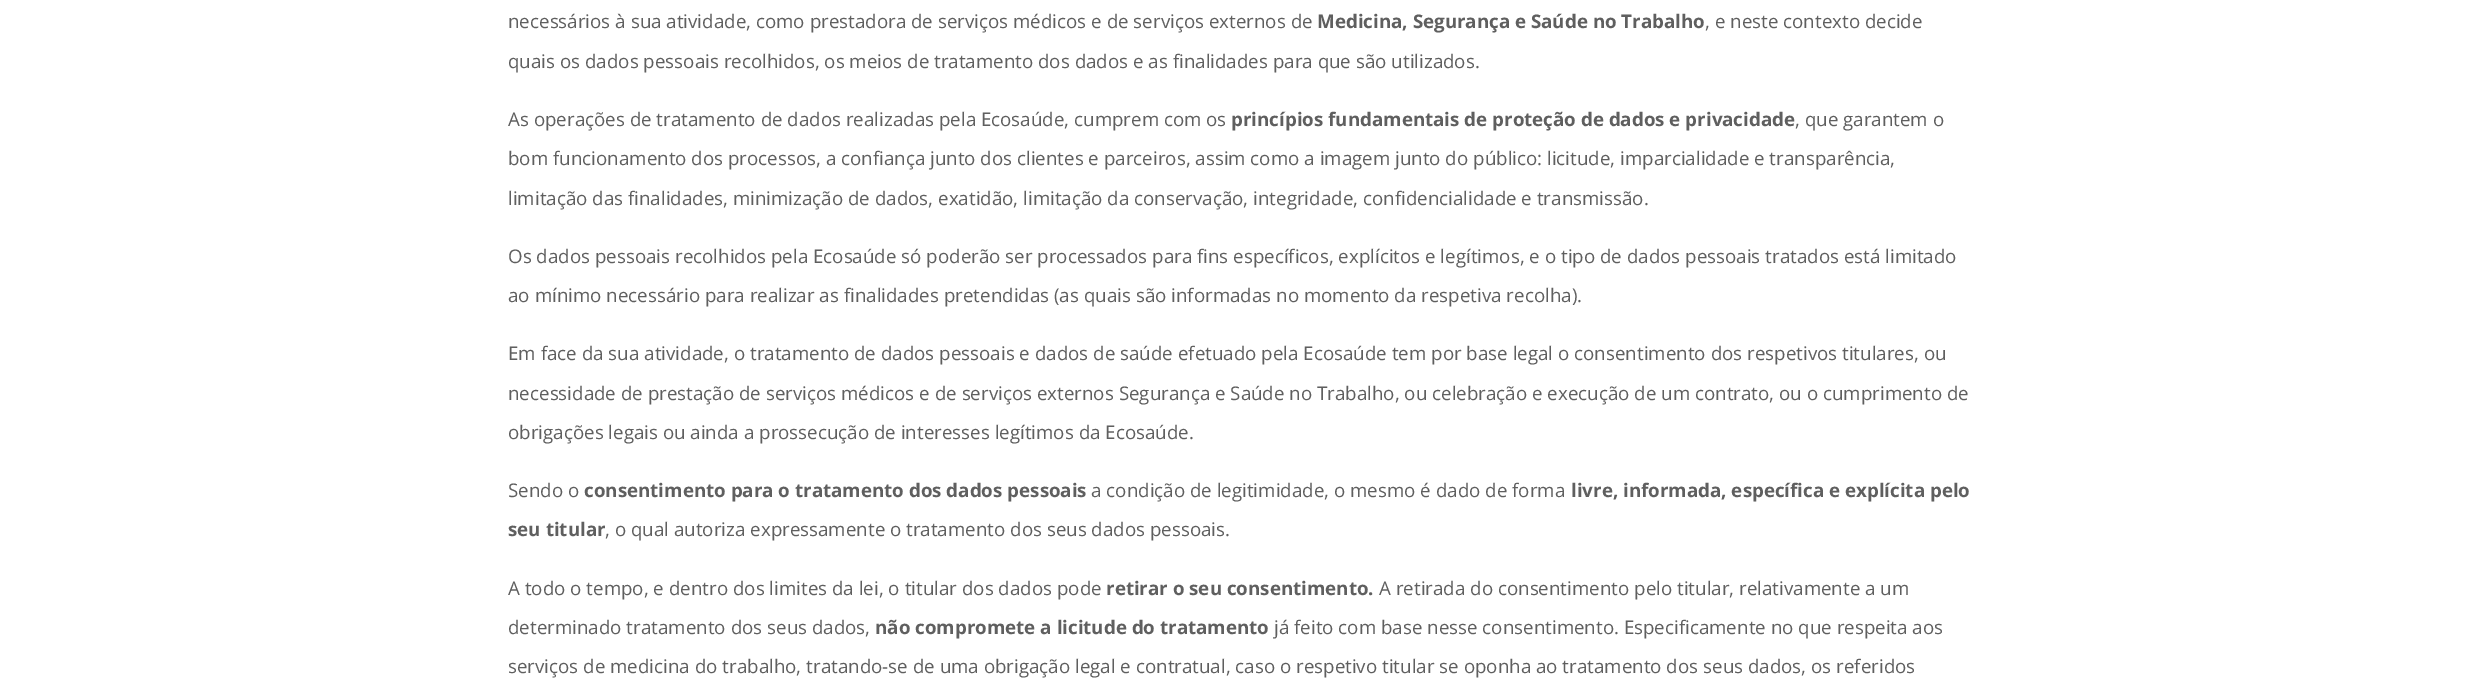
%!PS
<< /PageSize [2477 696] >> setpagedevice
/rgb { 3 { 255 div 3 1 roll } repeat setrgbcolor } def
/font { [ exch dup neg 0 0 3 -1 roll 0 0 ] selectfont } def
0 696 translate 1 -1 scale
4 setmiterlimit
255 255 255 rgb
0 0 2477 696 rectfill
/OpenSans-Regular 18.75 font
95 95 95 rgb
508 28 moveto (necessários à sua atividade, como prestadora de serviços médicos e de serviços externos de) show
/OpenSans-Bold 18.75 font
1317 28 moveto (Medicina, Segurança e Saúde no Trabalho) show
/OpenSans-Regular 18.75 font
[
  [(, e neste contexto decide) 1705 28]
  [(quais os dados pessoais recolhidos, os meios de tratamento dos dados e as finalidades para que são utilizados.) 508 68]
  [(As operações de tratamento de dados realizadas pela Ecosaúde, cumprem com os) 508 126]
] { aload pop moveto show } forall
/OpenSans-Bold 18.75 font
1231 126 moveto (princípios fundamentais de proteção de dados e privacidade) show
/OpenSans-Regular 18.75 font
[
  [(, que garantem o) 1795 126]
  [(bom funcionamento dos processos, a confiança junto dos clientes e parceiros, assim como a imagem junto do público: licitude, imparcialidade e transparência,) 508 165]
  [(limitação das finalidades, minimização de dados, exatidão, limitação da conservação, integridade, confidencialidade e transmissão.) 508 205]
  [(Os dados pessoais recolhidos pela Ecosaúde só poderão ser processados para fins específicos, explícitos e legítimos, e o tipo de dados pessoais tratados está limitado) 508 263]
  [(ao mínimo necessário para realizar as finalidades pretendidas \(as quais são informadas no momento da respetiva recolha\).) 508 302]
  [(Em face da sua atividade, o tratamento de dados pessoais e dados de saúde efetuado pela Ecosaúde tem por base legal o consentimento dos respetivos titulares, ou) 508 360]
  [(necessidade de prestação de serviços médicos e de serviços externos Segurança e Saúde no Trabalho, ou celebração e execução de um contrato, ou o cumprimento de) 508 400]
  [(obrigações legais ou ainda a prossecução de interesses legítimos da Ecosaúde.) 508 439]
  [(Sendo o) 508 497]
] { aload pop moveto show } forall
/OpenSans-Bold 18.75 font
584 497 moveto (consentimento para o tratamento dos dados pessoais) show
/OpenSans-Regular 18.75 font
1091 497 moveto (a condição de legitimidade, o mesmo é dado de forma) show
/OpenSans-Bold 18.75 font
1571 497 moveto (livre, informada, específica e explícita pelo) show
508 536 moveto (seu titular) show
/OpenSans-Regular 18.75 font
605 536 moveto (, o qual autoriza expressamente o tratamento dos seus dados pessoais.) show
508 595 moveto (A todo o tempo, e dentro dos limites da lei, o titular dos dados pode) show
/OpenSans-Bold 18.75 font
1106 595 moveto (retirar o seu consentimento.) show
/OpenSans-Regular 18.75 font
1379 595 moveto (A retirada do consentimento pelo titular, relativamente a um) show
508 634 moveto (determinado tratamento dos seus dados,) show
/OpenSans-Bold 18.75 font
875 634 moveto (não compromete a licitude do tratamento) show
/OpenSans-Regular 18.75 font
1274 634 moveto (já feito com base nesse consentimento. Especificamente no que respeita aos) show
508 673 moveto (serviços de medicina do trabalho, tratando-se de uma obrigação legal e contratual, caso o respetivo titular se oponha ao tratamento dos seus dados, os referidos) show
showpage
